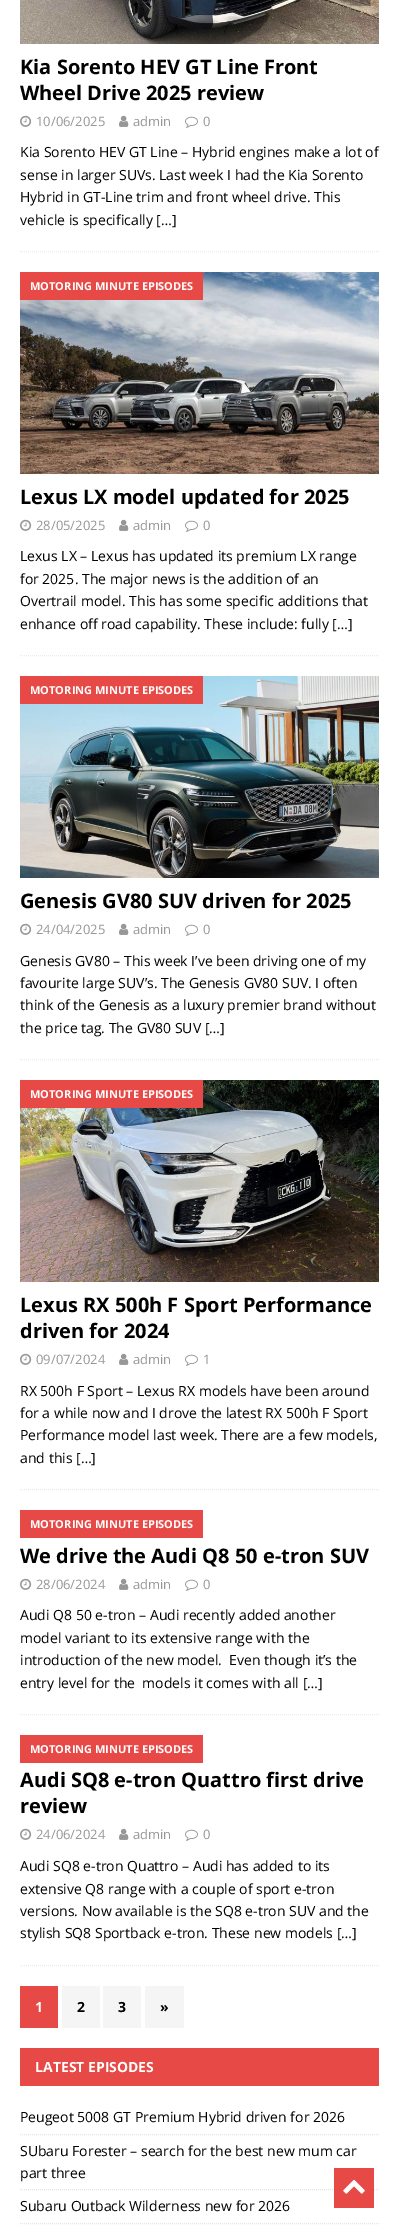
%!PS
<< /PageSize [399 2233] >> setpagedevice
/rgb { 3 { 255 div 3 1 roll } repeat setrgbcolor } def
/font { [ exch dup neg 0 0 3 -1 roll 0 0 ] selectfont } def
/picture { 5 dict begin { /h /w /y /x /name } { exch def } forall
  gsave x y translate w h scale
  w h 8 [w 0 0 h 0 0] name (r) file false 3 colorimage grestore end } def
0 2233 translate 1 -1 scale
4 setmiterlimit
255 255 255 rgb
0 0 399 2233 rectfill
235 235 235 rgb
[1 1] 0 setdash
20 251.5 moveto 379 251.5 lineto stroke
(img/1.rgb) 20 0 359 44 picture
(img/2.rgb) 20 115 12 12 picture
(img/3.rgb) 119 115 10 12 picture
(img/4.rgb) 185 116 13 12 picture
20 655.5 moveto 379 655.5 lineto stroke
(img/5.rgb) 20 272 359 202 picture
230 73 70 rgb
20 272 183 28 rectfill
(img/2.rgb) 20 519 12 12 picture
(img/3.rgb) 119 519 10 12 picture
(img/4.rgb) 185 520 13 12 picture
235 235 235 rgb
20 1059.5 moveto 379 1059.5 lineto stroke
(img/6.rgb) 20 676 359 202 picture
230 73 70 rgb
20 676 183 28 rectfill
(img/2.rgb) 20 923 12 12 picture
(img/3.rgb) 119 923 10 12 picture
(img/4.rgb) 185 924 13 12 picture
235 235 235 rgb
20 1489.5 moveto 379 1489.5 lineto stroke
(img/7.rgb) 20 1080 359 202 picture
230 73 70 rgb
20 1080 183 28 rectfill
(img/2.rgb) 20 1353 12 12 picture
(img/3.rgb) 119 1353 10 12 picture
(img/4.rgb) 185 1354 13 12 picture
235 235 235 rgb
20 1714.5 moveto 379 1714.5 lineto stroke
230 73 70 rgb
20 1510 183 28 rectfill
(img/2.rgb) 20 1578 12 12 picture
(img/3.rgb) 119 1578 10 12 picture
(img/4.rgb) 185 1579 13 12 picture
235 235 235 rgb
20 1965.5 moveto 379 1965.5 lineto stroke
230 73 70 rgb
20 1735 183 28 rectfill
(img/2.rgb) 20 1828 12 12 picture
(img/3.rgb) 119 1828 10 12 picture
(img/4.rgb) 185 1829 13 12 picture
[
  [20 1986 38 42 230 73 70]
  [62 1986 38 42 245 245 245]
  [103 1986 38 42 245 245 245]
  [145 1986 39 42 245 245 245]
  [20 2048 359 38 230 73 70]
] { aload pop rgb rectfill } forall
229 229 229 rgb
20 2134.5 moveto 379 2134.5 lineto stroke
20 2189.5 moveto 379 2189.5 lineto stroke
20 2223.5 moveto 379 2223.5 lineto stroke
230 73 70 rgb
334 2168 40 40 rectfill
(img/8.rgb) 343 2179 22 15 picture
/OpenSans-Bold 20 font
0 0 0 rgb
20 74 moveto (Kia Sorento HEV GT Line Front) show
20 100 moveto (Wheel Drive 2025 review) show
/OpenSans-Regular 13 font
151 151 151 rgb
[
  [(10/06/2025) 36 126]
  [(admin) 133 126]
  [(0) 203 126]
] { aload pop moveto show } forall
/OpenSans-Regular 14 font
0 0 0 rgb
[
  [(Kia Sorento HEV GT Line – Hybrid engines make a lot of) 20 157]
  [(sense in larger SUVs. Last week I had the Kia Sorento) 20 180]
  [(Hybrid in GT-Line trim and front wheel drive. This) 20 202]
  [(vehicle is specifically […]) 20 225]
] { aload pop moveto show } forall
/OpenSans-Bold 11 font
255 255 255 rgb
30 290 moveto (MOTORING MINUTE EPISODES) show
/OpenSans-Bold 20 font
0 0 0 rgb
20 504 moveto (Lexus LX model updated for 2025) show
/OpenSans-Regular 13 font
151 151 151 rgb
[
  [(28/05/2025) 36 530]
  [(admin) 133 530]
  [(0) 203 530]
] { aload pop moveto show } forall
/OpenSans-Regular 14 font
0 0 0 rgb
[
  [(Lexus LX – Lexus has updated its premium LX range) 20 561]
  [(for 2025. The major news is the addition of an) 20 584]
  [(Overtrail model. This has some specific additions that) 20 606]
  [(enhance off road capability. These include: fully […]) 20 629]
] { aload pop moveto show } forall
/OpenSans-Bold 11 font
255 255 255 rgb
30 694 moveto (MOTORING MINUTE EPISODES) show
/OpenSans-Bold 20 font
0 0 0 rgb
20 908 moveto (Genesis GV80 SUV driven for 2025) show
/OpenSans-Regular 13 font
151 151 151 rgb
[
  [(24/04/2025) 36 934]
  [(admin) 133 934]
  [(0) 203 934]
] { aload pop moveto show } forall
/OpenSans-Regular 14 font
0 0 0 rgb
[
  [(Genesis GV80 – This week I’ve been driving one of my) 20 966]
  [(favourite large SUV’s. The Genesis GV80 SUV. I often) 20 988]
  [(think of the Genesis as a luxury premier brand without) 20 1010]
  [(the price tag. The GV80 SUV […]) 20 1033]
] { aload pop moveto show } forall
/OpenSans-Bold 11 font
255 255 255 rgb
30 1098 moveto (MOTORING MINUTE EPISODES) show
/OpenSans-Bold 20 font
0 0 0 rgb
20 1312 moveto (Lexus RX 500h F Sport Performance) show
20 1338 moveto (driven for 2024) show
/OpenSans-Regular 13 font
151 151 151 rgb
[
  [(09/07/2024) 36 1364]
  [(admin) 133 1364]
  [(1) 203 1364]
] { aload pop moveto show } forall
/OpenSans-Regular 14 font
0 0 0 rgb
[
  [(RX 500h F Sport – Lexus RX models have been around) 20 1396]
  [(for a while now and I drove the latest RX 500h F Sport) 20 1418]
  [(Performance model last week. There are a few models,) 20 1440]
  [(and this […]) 20 1463]
] { aload pop moveto show } forall
/OpenSans-Bold 11 font
255 255 255 rgb
30 1528 moveto (MOTORING MINUTE EPISODES) show
/OpenSans-Bold 20 font
0 0 0 rgb
20 1563 moveto (We drive the Audi Q8 50 e-tron SUV) show
/OpenSans-Regular 13 font
151 151 151 rgb
[
  [(28/06/2024) 36 1589]
  [(admin) 133 1589]
  [(0) 203 1589]
] { aload pop moveto show } forall
/OpenSans-Regular 14 font
0 0 0 rgb
[
  [(Audi Q8 50 e-tron – Audi recently added another) 20 1620]
  [(model variant to its extensive range with the) 20 1643]
  [(introduction of the new model.  Even though it’s the) 20 1665]
  [(entry level for the  models it comes with all […]) 20 1688]
] { aload pop moveto show } forall
/OpenSans-Bold 11 font
255 255 255 rgb
30 1753 moveto (MOTORING MINUTE EPISODES) show
/OpenSans-Bold 20 font
0 0 0 rgb
20 1787 moveto (Audi SQ8 e-tron Quattro first drive) show
20 1813 moveto (review) show
/OpenSans-Regular 13 font
151 151 151 rgb
[
  [(24/06/2024) 36 1839]
  [(admin) 133 1839]
  [(0) 203 1839]
] { aload pop moveto show } forall
/OpenSans-Regular 14 font
0 0 0 rgb
[
  [(Audi SQ8 e-tron Quattro – Audi has added to its) 20 1871]
  [(extensive Q8 range with a couple of sport e-tron) 20 1894]
  [(versions. Now available is the SQ8 e-tron SUV and the) 20 1916]
  [(stylish SQ8 Sportback e-tron. These new models […]) 20 1938]
] { aload pop moveto show } forall
/OpenSans-Bold 14 font
255 255 255 rgb
35 2012 moveto (1) show
0 0 0 rgb
[
  [(2) 77 2012]
  [(3) 118 2012]
  [(») 160 2012]
] { aload pop moveto show } forall
255 255 255 rgb
35 2072 moveto (LATEST EPISODES) show
/OpenSans-Regular 14 font
0 0 0 rgb
[
  [(Peugeot 5008 GT Premium Hybrid driven for 2026) 20 2122]
  [(SUbaru Forester – search for the best new mum car) 20 2156]
  [(part three) 20 2178]
  [(Subaru Outback Wilderness new for 2026) 20 2211]
] { aload pop moveto show } forall
showpage
